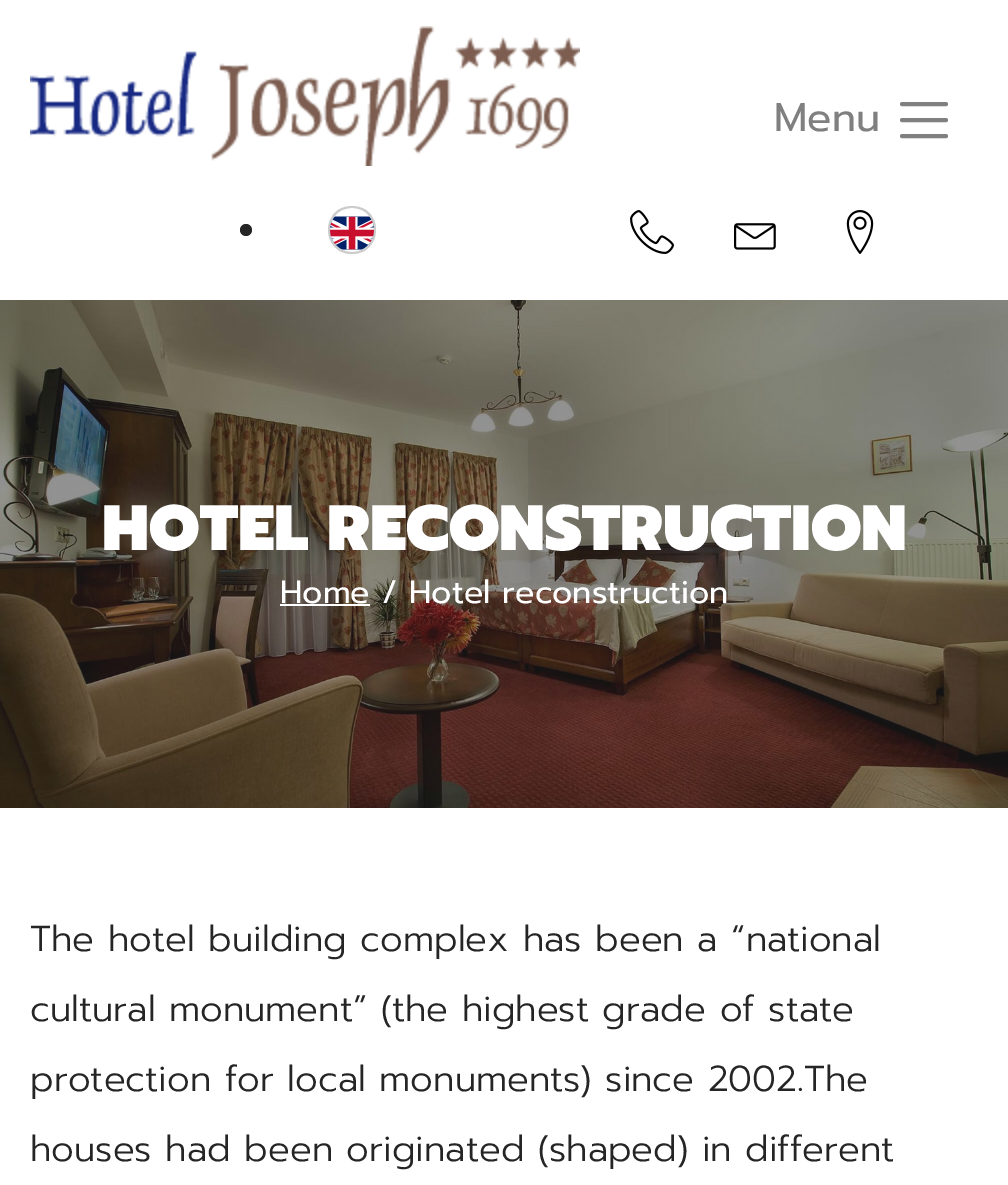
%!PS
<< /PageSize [1008 1185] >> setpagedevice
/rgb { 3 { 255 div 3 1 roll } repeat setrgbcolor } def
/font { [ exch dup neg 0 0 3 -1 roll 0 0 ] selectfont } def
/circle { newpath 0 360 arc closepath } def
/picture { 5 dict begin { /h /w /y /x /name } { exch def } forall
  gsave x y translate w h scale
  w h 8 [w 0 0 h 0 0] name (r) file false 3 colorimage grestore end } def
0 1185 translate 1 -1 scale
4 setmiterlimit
255 255 255 rgb
0 0 1008 1185 rectfill
(img/1.rgb) 30 26 550 140 picture
128 128 128 rgb
4 setlinewidth
1 setlinecap
902 104 moveto 946 104 lineto 902 120 moveto 946 120 lineto 902 136 moveto 946 136 lineto stroke
37 37 37 rgb
246 230 6 circle fill
204 204 204 rgb
352 206 moveto 384 206 384 254 352 254 curveto 320 254 320 206 352 206 curveto closepath 352 208 moveto 323 208 323 252 352 252 curveto 381 252 381 208 352 208 curveto closepath eofill
(img/2.rgb) 330 216 44 34 picture
(img/3.rgb) 630 210 44 44 picture
(img/4.rgb) 734 223 42 27 picture
(img/5.rgb) 846 210 28 44 picture
(img/6.rgb) 0 300 1008 508 picture
255 255 255 rgb
280 604 90 2 rectfill
/Prompt-Regular 40 font
128 128 128 rgb
774 131 moveto (Menu) show
/Prompt-Black 64 font
255 255 255 rgb
102 550 moveto (HOTEL RECONSTRUCTION) show
/Prompt-Regular 32 font
280 603 moveto (Home / Hotel reconstruction) show
/Prompt-Light 36 font
37 37 37 rgb
[
  [(The hotel building complex has been a “national) 30 951]
  [(cultural monument” \(the highest grade of state) 30 1021]
  [(protection for local monuments\) since 2002.The) 30 1091]
  [(houses had been originated \(shaped\) in different) 30 1161]
] { aload pop moveto show } forall
showpage
